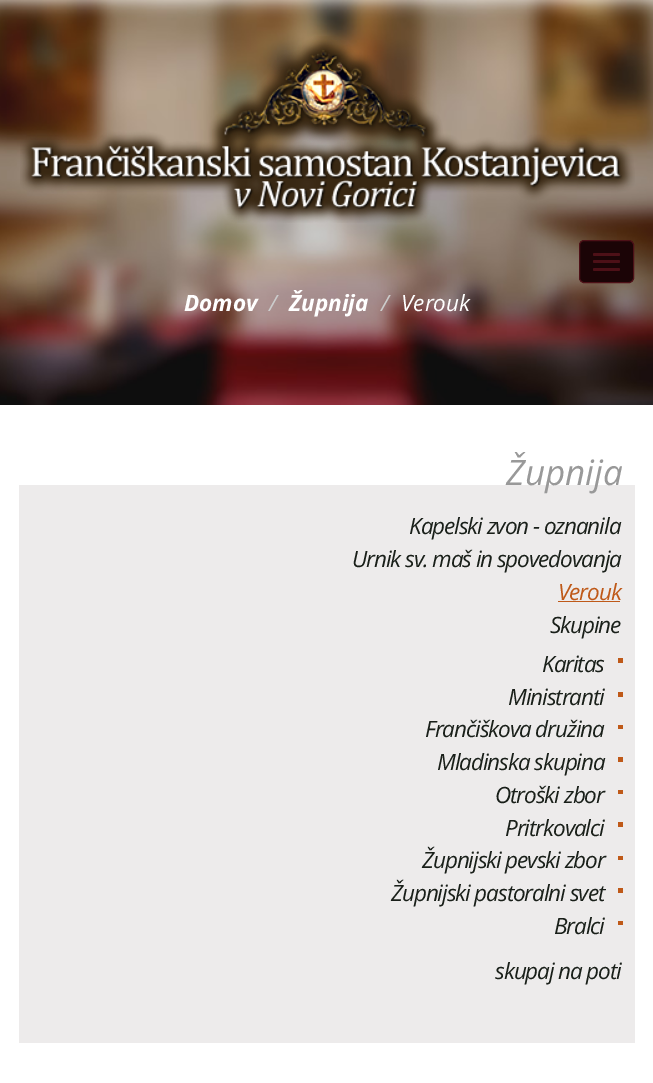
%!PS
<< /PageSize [653 1083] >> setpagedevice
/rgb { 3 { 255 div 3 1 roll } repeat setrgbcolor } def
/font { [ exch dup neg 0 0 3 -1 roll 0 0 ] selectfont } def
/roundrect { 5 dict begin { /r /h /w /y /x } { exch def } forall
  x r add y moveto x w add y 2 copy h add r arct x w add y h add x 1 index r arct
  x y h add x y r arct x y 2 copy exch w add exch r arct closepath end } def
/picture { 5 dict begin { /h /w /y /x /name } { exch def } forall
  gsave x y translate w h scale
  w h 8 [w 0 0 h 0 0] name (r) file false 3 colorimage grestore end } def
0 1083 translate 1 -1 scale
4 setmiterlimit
255 255 255 rgb
0 0 653 1083 rectfill
(img/1.rgb) 0 0 653 405 picture
(img/2.rgb) 20 36 615 187 picture
27 4 6 rgb
579.5 240.5 54 42 4.5 roundrect gsave fill grestore
77 16 23 rgb
stroke
593 253 27 3 1.5 roundrect fill
593 260 27 3 1.5 roundrect fill
593 268 27 3 1.5 roundrect fill
[
  [19 485 616 558 237 235 235]
  [558 601 62 1 191 89 24]
  [618 658 5 5 191 89 24]
  [618 692 5 5 191 89 24]
  [618 725 5 4 191 89 24]
  [618 757 5 5 191 89 24]
  [618 790 5 4 191 89 24]
  [618 822 5 5 191 89 24]
  [618 856 5 4 191 89 24]
  [618 888 5 5 191 89 24]
  [618 921 5 4 191 89 24]
] { aload pop rgb rectfill } forall
/OpenSans-BoldItalic 22.5 font
255 255 255 rgb
184 311 moveto (Domov) show
/OpenSans-Italic 22.5 font
204 204 204 rgb
269 311 moveto (/) show
/OpenSans-BoldItalic 22.5 font
255 255 255 rgb
289 311 moveto (Župnija) show
/OpenSans-Italic 22.5 font
204 204 204 rgb
381 311 moveto (/) show
255 255 255 rgb
401 311 moveto (Verouk) show
/OpenSans-Italic 35 font
153 153 153 rgb
506 485 moveto (Župnija) show
/OpenSans-Italic 22.5 font
25 31 25 rgb
409 534 moveto -1.1 0 (Kapelski zvon - oznanila) ashow
352 567 moveto -1.1 0 (Urnik sv. maš in spovedovanja) ashow
191 89 24 rgb
558 600 moveto -1.1 0 (Verouk) ashow
25 31 25 rgb
550 633 moveto -1.1 0 (Skupine) ashow
542 672 moveto -1.1 0 (Karitas) ashow
508 705 moveto -1.1 0 (Ministranti) ashow
425 737 moveto -1.1 0 (Frančiškova družina) ashow
437 770 moveto -1.1 0 (Mladinska skupina) ashow
495 803 moveto -1.1 0 (Otroški zbor) ashow
505 836 moveto -1.1 0 (Pritrkovalci) ashow
422 868 moveto -1.1 0 (Župnijski pevski zbor) ashow
391 901 moveto -1.1 0 (Župnijski pastoralni svet) ashow
554 934 moveto -1.1 0 (Bralci) ashow
495 979 moveto -1.1 0 (skupaj na poti) ashow
showpage
